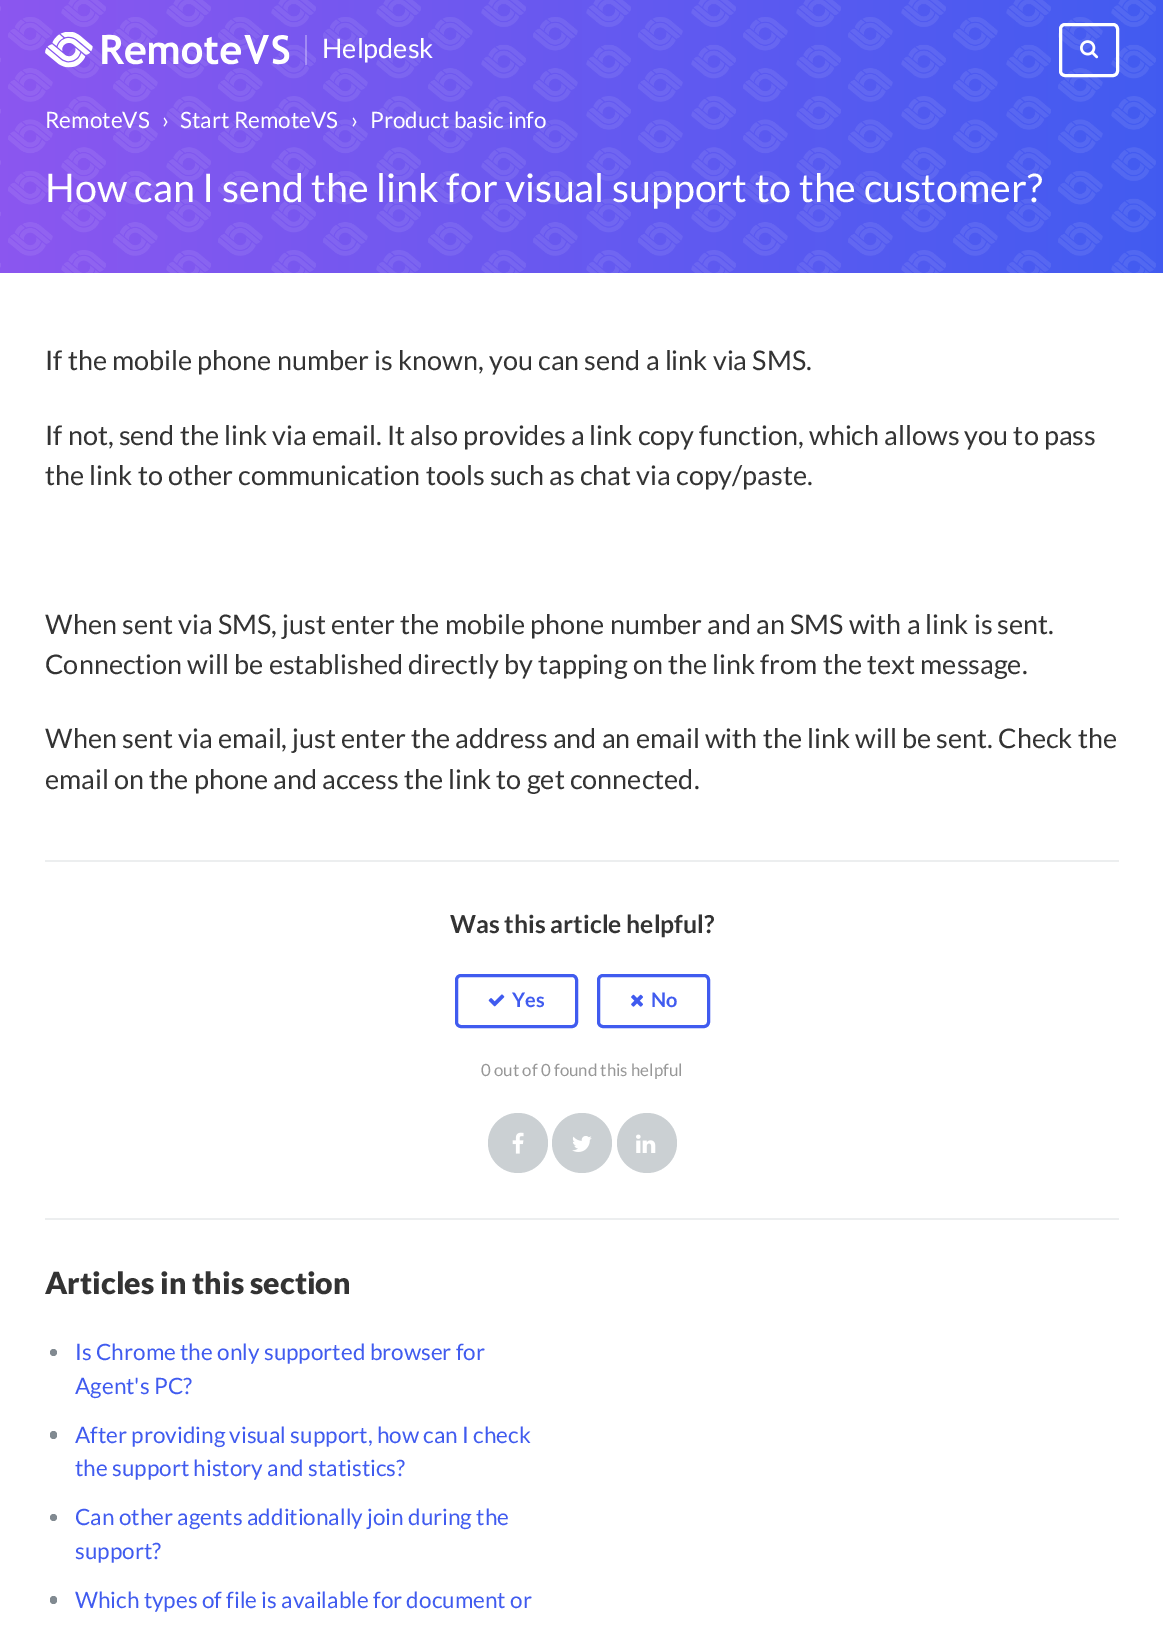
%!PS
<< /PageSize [1163 1634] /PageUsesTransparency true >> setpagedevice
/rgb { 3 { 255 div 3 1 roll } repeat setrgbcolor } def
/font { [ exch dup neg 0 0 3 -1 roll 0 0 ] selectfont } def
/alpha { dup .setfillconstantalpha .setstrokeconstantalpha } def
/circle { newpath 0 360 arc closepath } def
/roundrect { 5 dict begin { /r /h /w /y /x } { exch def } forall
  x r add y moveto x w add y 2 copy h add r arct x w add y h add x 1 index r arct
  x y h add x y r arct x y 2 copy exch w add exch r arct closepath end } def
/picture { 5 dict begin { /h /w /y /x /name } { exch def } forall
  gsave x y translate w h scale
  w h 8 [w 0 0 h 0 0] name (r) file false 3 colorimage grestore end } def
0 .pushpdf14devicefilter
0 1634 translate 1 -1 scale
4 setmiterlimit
255 255 255 rgb
0 0 1163 1634 rectfill
gsave 0 0 moveto 1163 0 lineto 1163 273 lineto 0 273 lineto closepath clip newpath
<< /ShadingType 2 /ColorSpace /DeviceRGB /Coords [0 137 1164 136] /Extend [true true] /Function << /FunctionType 2 /Domain [0 1] /C0 [0.545 0.337 0.937] /C1 [0.255 0.357 0.941] /N 1 >> >> shfill grestore
(img/3.rgb) 0 0 1156 273 picture
(img/1.rgb) 45 32 245 36 picture
0.3 alpha
305 35 2 30 rectfill
1 alpha
3 setlinewidth
1060.5 24.5 57 51 4.5 roundrect stroke
(img/2.rgb) 1080 40 19 19 picture
236 238 239 rgb
45 860 1074 2 rectfill
45 1218 1074 2 rectfill
64 91 239 rgb
456.5 975.5 120 51 4.5 roundrect stroke
(img/4.rgb) 488 994 17 13 picture
598.5 975.5 110 51 4.5 roundrect stroke
(img/5.rgb) 631 994 12 13 picture
203 208 211 rgb
518 1143 30 circle fill
(img/6.rgb) 512 1132 12 22 picture
582 1143 30 circle fill
(img/7.rgb) 572 1136 20 16 picture
647 1143 30 circle fill
(img/8.rgb) 636 1134 20 19 picture
129 138 145 rgb
53.5 1352.5 3.5 circle fill
50 1431 7 8 3.5 roundrect fill
53.5 1517.5 3.5 circle fill
50 1596 7 8 3.5 roundrect fill
/Lato-Regular 27 font
255 255 255 rgb
322 58 moveto (Helpdesk) show
/Lato-Regular 22.5 font
[
  [(RemoteVS) 45 128]
  [(›) 162 128]
  [(Start RemoteVS) 180 128]
  [(›) 351 128]
  [(Product basic info) 370 128]
] { aload pop moveto show } forall
/Lato-Regular 39.4 font
45 202 moveto (How can I send the link for visual support to the customer?) show
/Lato-Regular 27 font
51 51 51 rgb
[
  [(If the mobile phone number is known, you can send a link via SMS.) 45 370]
  [(If not, send the link via email. It also provides a link copy function, which allows you to pass) 45 445]
  [(the link to other communication tools such as chat via copy/paste.) 45 485]
  [(When sent via SMS, just enter the mobile phone number and an SMS with a link is sent.) 45 634]
  [(Connection will be established directly by tapping on the link from the text message.) 45 674]
  [(When sent via email, just enter the address and an email with the link will be sent. Check the) 45 748]
  [(email on the phone and access the link to get connected.) 45 789]
] { aload pop moveto show } forall
/Lato-Bold 24.75 font
450 933 moveto (Was this article helpful?) show
/Lato-Bold 20 font
64 91 239 rgb
512 1007 moveto (Yes) show
651 1007 moveto (No) show
/Lato-Regular 16.9 font
151 151 151 rgb
481 1076 moveto (0 out of 0 found this helpful) show
/Lato-Black 30.4 font
51 51 51 rgb
45 1294 moveto (Articles in this section) show
/Lato-Regular 22.5 font
64 91 239 rgb
[
  [(Is Chrome the only supported browser for) 75 1360]
  [(Agent's PC?) 75 1394]
  [(After providing visual support, how can I check) 75 1443]
  [(the support history and statistics?) 75 1476]
  [(Can other agents additionally join during the) 75 1525]
  [(support?) 75 1559]
  [(Which types of file is available for document or) 75 1608]
] { aload pop moveto show } forall
.poppdf14devicefilter showpage
